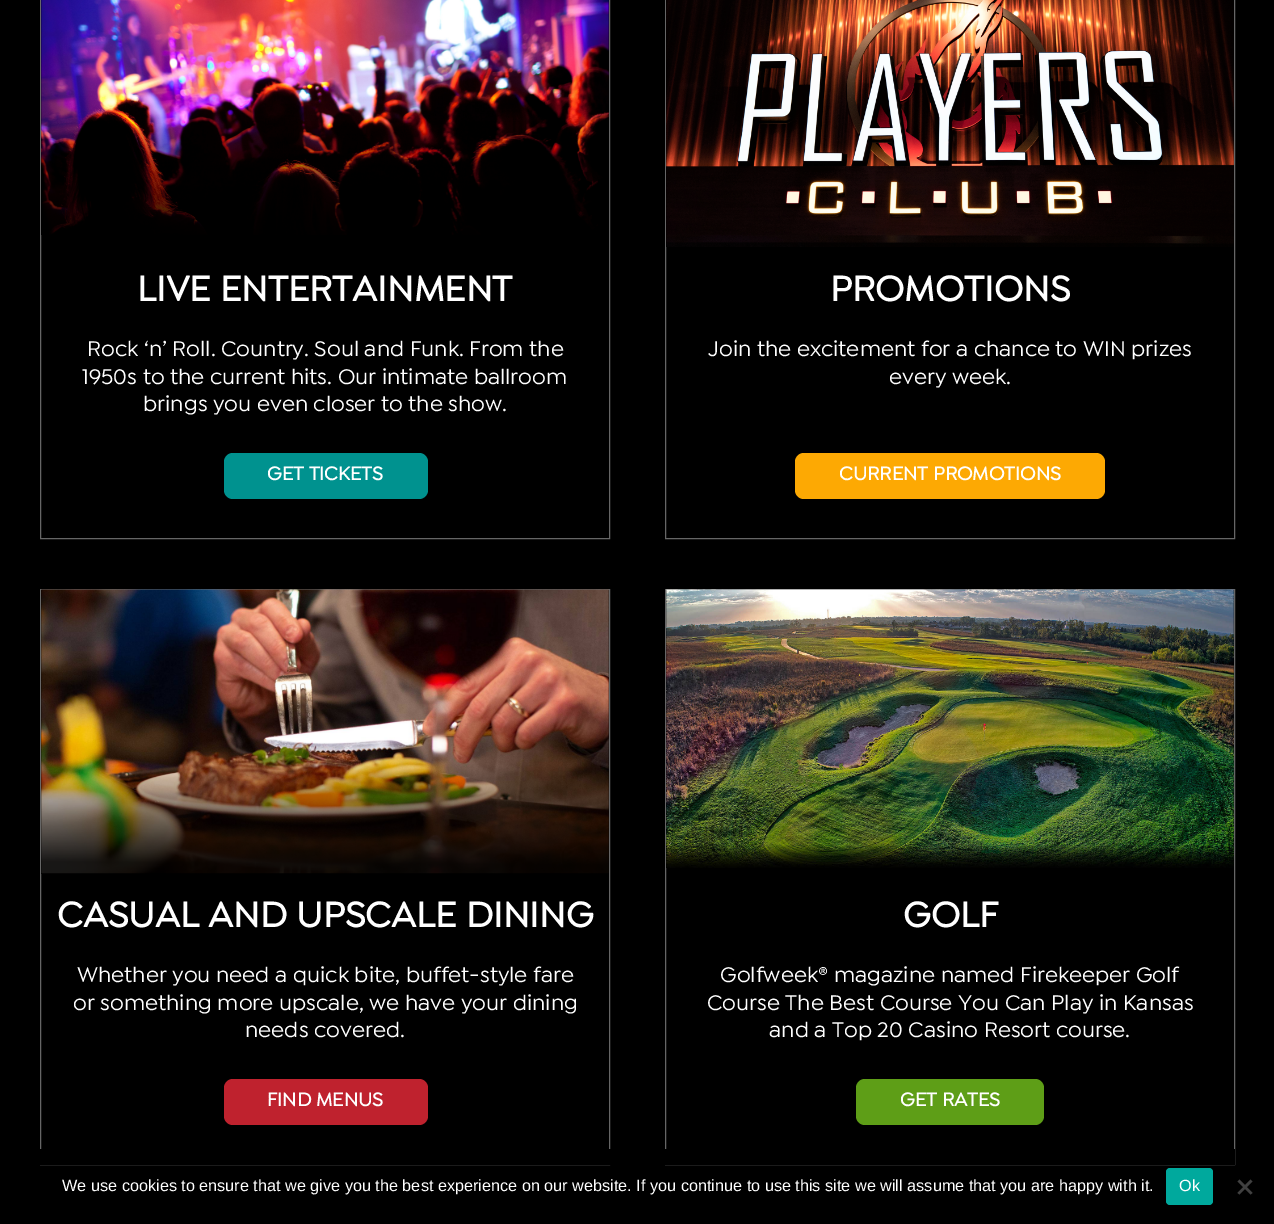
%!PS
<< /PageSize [1274 1224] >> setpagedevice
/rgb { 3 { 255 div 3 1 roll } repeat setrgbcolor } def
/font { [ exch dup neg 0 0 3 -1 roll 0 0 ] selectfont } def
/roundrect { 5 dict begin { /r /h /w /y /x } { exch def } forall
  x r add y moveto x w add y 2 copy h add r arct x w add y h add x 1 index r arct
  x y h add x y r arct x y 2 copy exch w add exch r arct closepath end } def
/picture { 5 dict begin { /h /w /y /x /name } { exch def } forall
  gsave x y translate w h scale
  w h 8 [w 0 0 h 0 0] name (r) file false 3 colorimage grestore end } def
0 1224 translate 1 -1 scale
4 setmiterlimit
0 0 0 rgb
0 0 1274 1224 rectfill
102 102 102 rgb
40.5 -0.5 569 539 rectstroke
(img/1.rgb) 41 0 568 235 picture
0 146 143 rgb
224 453 204 46 9 roundrect fill
102 102 102 rgb
665.5 -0.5 569 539 rectstroke
(img/2.rgb) 666 0 568 247 picture
253 169 3 rgb
795 453 310 46 9 roundrect fill
102 102 102 rgb
40.5 589.5 569 575 rectstroke
(img/3.rgb) 41 589 568 285 picture
191 34 46 rgb
224 1079 204 46 9 roundrect fill
102 102 102 rgb
665.5 589.5 569 575 rectstroke
(img/4.rgb) 666 589 568 279 picture
94 158 23 rgb
856 1079 188 46 9 roundrect fill
0 0 0 rgb
40 1149 1195 16 rectfill
0 169 157 rgb
1166 1168 47 37 4 roundrect fill
64 64 64 rgb
1250.5 1179.5 moveto 1252.5 1181.5 lineto 1239.5 1194.5 lineto 1237.5 1193 lineto closepath fill
1237.5 1181.5 moveto 1239.5 1179.5 lineto 1252.5 1193 lineto 1250.5 1194.5 lineto closepath fill
/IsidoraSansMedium-Bold 37.5 font
255 255 255 rgb
137 301 moveto (LIVE ENTERTAINMENT) show
/IsidoraSansMedium-Regular 22.5 font
[
  [(Rock ‘n’ Roll. Country. Soul and Funk. From the) 87 356]
  [(1950s to the current hits. Our intimate ballroom) 82 384]
  [(brings you even closer to the show.) 143 411]
] { aload pop moveto show } forall
/IsidoraSansMedium-Bold 20 font
267 480 moveto (GET TICKETS) show
/IsidoraSansMedium-Bold 37.5 font
830 301 moveto (PROMOTIONS) show
/IsidoraSansMedium-Regular 22.5 font
708 356 moveto (Join the excitement for a chance to WIN prizes) show
889 384 moveto (every week.) show
/IsidoraSansMedium-Bold 20 font
839 480 moveto (CURRENT PROMOTIONS) show
/IsidoraSansMedium-Bold 37.5 font
57 927 moveto (CASUAL AND UPSCALE DINING) show
/IsidoraSansMedium-Regular 22.5 font
[
  [(Whether you need a quick bite, buffet-style fare) 77 982]
  [(or something more upscale, we have your dining) 73 1010]
  [(needs covered.) 245 1037]
] { aload pop moveto show } forall
/IsidoraSansMedium-Bold 20 font
267 1106 moveto (FIND MENUS) show
/IsidoraSansMedium-Bold 37.5 font
903 927 moveto (GOLF) show
/IsidoraSansMedium-Regular 22.5 font
[
  [(Golfweek® magazine named Firekeeper Golf) 720 982]
  [(Course The Best Course You Can Play in Kansas) 707 1010]
  [(and a Top 20 Casino Resort course.) 769 1037]
] { aload pop moveto show } forall
/IsidoraSansMedium-Bold 20 font
900 1106 moveto (GET RATES) show
/LiberationSans-Regular 16.25 font
62 1191 moveto (We use cookies to ensure that we give you the best experience on our website. If you continue to use this site we will assume that you are happy with it.) show
1179 1191 moveto (Ok) show
showpage
